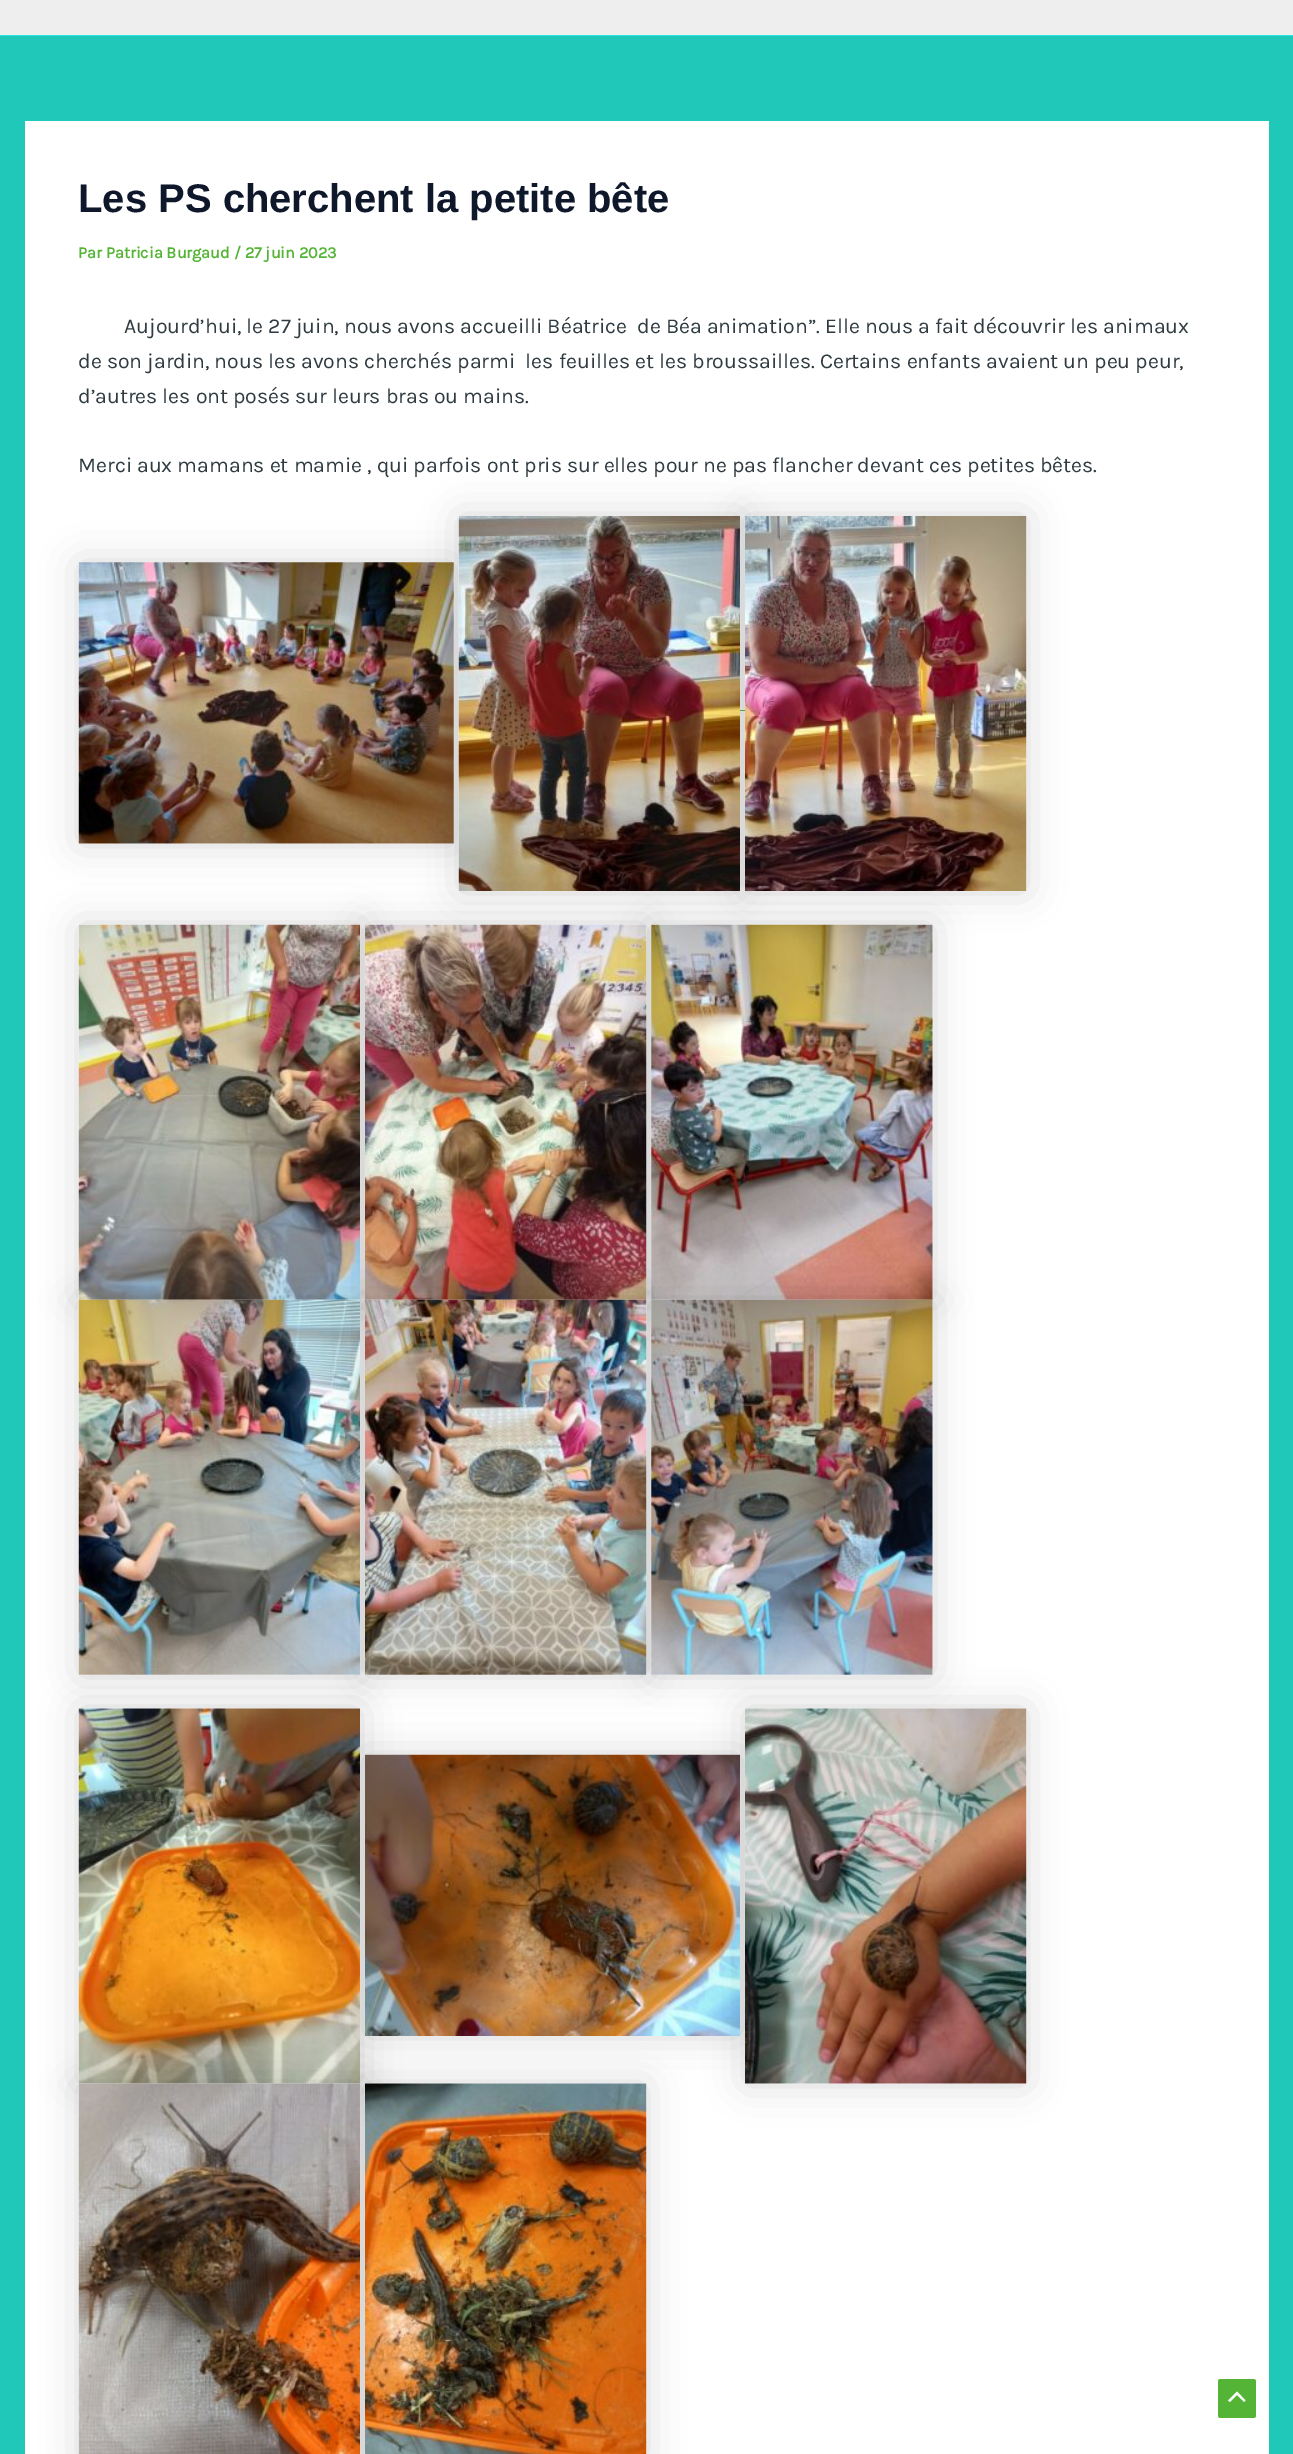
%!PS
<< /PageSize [1293 2454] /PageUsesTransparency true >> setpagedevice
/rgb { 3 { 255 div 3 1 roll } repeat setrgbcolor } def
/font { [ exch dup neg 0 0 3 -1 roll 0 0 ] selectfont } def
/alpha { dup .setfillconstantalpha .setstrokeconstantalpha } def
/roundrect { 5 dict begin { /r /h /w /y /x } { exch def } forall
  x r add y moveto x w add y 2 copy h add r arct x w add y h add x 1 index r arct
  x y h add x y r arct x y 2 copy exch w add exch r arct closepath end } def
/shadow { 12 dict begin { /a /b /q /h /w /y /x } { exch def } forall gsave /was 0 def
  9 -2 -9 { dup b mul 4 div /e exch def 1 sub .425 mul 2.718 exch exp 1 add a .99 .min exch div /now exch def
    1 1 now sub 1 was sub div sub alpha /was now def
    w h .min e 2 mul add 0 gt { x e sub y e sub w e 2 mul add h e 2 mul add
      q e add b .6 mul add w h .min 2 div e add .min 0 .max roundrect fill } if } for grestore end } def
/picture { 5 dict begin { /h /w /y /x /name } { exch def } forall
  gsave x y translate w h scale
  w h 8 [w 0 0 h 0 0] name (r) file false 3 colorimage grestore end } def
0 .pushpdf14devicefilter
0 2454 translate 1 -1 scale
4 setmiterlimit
32 200 186 rgb
0 0 1293 2454 rectfill
[
  [0 0 1293 35 238 238 238]
  [0 35 1293 1 40 232 222]
  [25 121 1244 2333 255 255 255]
] { aload pop rgb rectfill } forall
0 0 0 rgb
79 563 375 281 0 19 0.15 shadow
(img/1.rgb) 78 562 376 282 picture
459 516 281 375 0 19 0.15 shadow
(img/2.rgb) 458 516 282 375 picture
84 180 53 rgb
740 710 5 1 rectfill
0 0 0 rgb
745 516 281 375 0 19 0.15 shadow
(img/3.rgb) 745 516 282 375 picture
79 925 281 375 0 19 0.15 shadow
(img/4.rgb) 78 924 282 376 picture
365 925 281 375 0 19 0.15 shadow
(img/5.rgb) 365 924 282 376 picture
651 925 282 375 0 19 0.15 shadow
(img/6.rgb) 651 924 282 376 picture
79 1300 281 375 0 19 0.15 shadow
(img/7.rgb) 78 1299 282 376 picture
365 1300 281 375 0 19 0.15 shadow
(img/8.rgb) 365 1299 282 376 picture
651 1300 282 375 0 19 0.15 shadow
(img/9.rgb) 651 1299 282 376 picture
79 1709 281 375 0 19 0.15 shadow
(img/10.rgb) 78 1708 282 376 picture
365 1755 375 281 0 19 0.15 shadow
(img/11.rgb) 365 1754 375 282 picture
745 1709 281 375 0 19 0.15 shadow
(img/12.rgb) 745 1708 282 376 picture
79 2084 281 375 0 19 0.15 shadow
(img/13.rgb) 78 2083 282 371 picture
365 2084 281 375 0 19 0.15 shadow
(img/14.rgb) 365 2083 282 371 picture
84 180 53 rgb
1218 2379 38 39 2.5 roundrect fill
255 255 255 rgb
1245.5 2400.5 moveto 1237 2391.5 lineto 1228 2400.5 lineto 1230 2402 lineto 1237 2395 lineto 1244 2402 lineto closepath fill
/LiberationSans-Bold 40 font
15 23 42 rgb
78 212 moveto (Les PS cherchent la petite bête) show
/Karla-Bold 16.25 font
84 180 53 rgb
78 258 moveto (Par Patricia Burgaud / 27 juin 2023) show
/Karla-Regular 21.25 font
47 59 64 rgb
[
  [(Aujourd’hui, le 27 juin, nous avons accueilli Béatrice  de Béa animation”. Elle nous a fait découvrir les animaux) 124 333]
  [(de son jardin, nous les avons cherchés parmi  les feuilles et les broussailles. Certains enfants avaient un peu peur,) 78 368]
  [(d’autres les ont posés sur leurs bras ou mains.) 78 403]
  [(Merci aux mamans et mamie , qui parfois ont pris sur elles pour ne pas flancher devant ces petites bêtes.) 78 472]
] { aload pop moveto show } forall
.poppdf14devicefilter showpage
